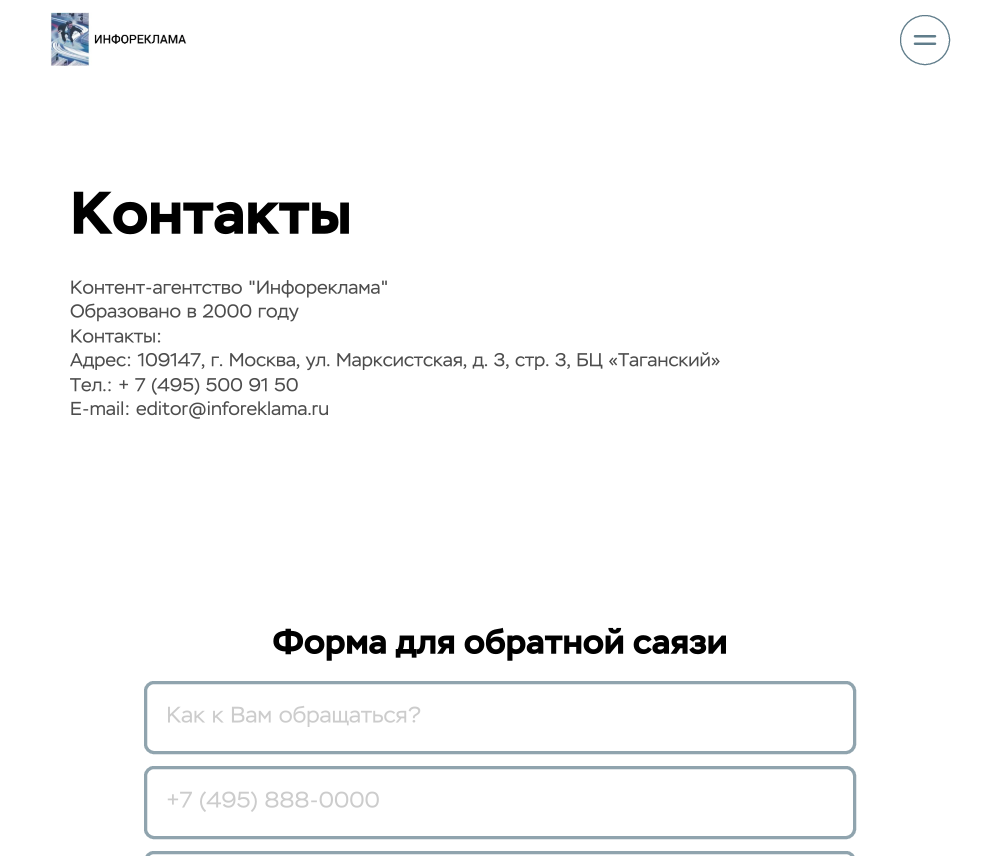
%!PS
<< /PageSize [1000 856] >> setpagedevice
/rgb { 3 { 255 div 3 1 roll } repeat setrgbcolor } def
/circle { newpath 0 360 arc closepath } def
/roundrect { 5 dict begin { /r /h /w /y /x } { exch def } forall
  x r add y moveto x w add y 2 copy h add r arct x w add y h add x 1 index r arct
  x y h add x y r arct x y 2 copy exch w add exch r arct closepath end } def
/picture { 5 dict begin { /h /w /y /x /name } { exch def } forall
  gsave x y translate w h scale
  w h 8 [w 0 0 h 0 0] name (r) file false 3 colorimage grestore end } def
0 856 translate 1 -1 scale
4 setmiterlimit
255 255 255 rgb
0 0 1000 856 rectfill
(img/1.rgb) 50 12 137 54 picture
96 125 139 rgb
925 40 24.5 circle stroke
(img/2.rgb) 913 35 24 10 picture
(img/3.rgb) 73 191 276 44 picture
(img/4.rgb) 71 280 316 18 picture
(img/5.rgb) 70 303 229 19 picture
(img/6.rgb) 71 329 90 14 picture
(img/7.rgb) 70 352 650 19 picture
(img/8.rgb) 70 377 228 18 picture
(img/9.rgb) 71 401 257 18 picture
(img/10.rgb) 273 627 453 34 picture
144 164 174 rgb
3 setlinewidth
145.5 682.5 709 70 8.5 roundrect stroke
(img/11.rgb) 168 705 253 22 picture
145.5 767.5 709 70 8.5 roundrect stroke
(img/12.rgb) 167 791 212 21 picture
145.5 852.5 709 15 8.5 roundrect stroke
showpage
